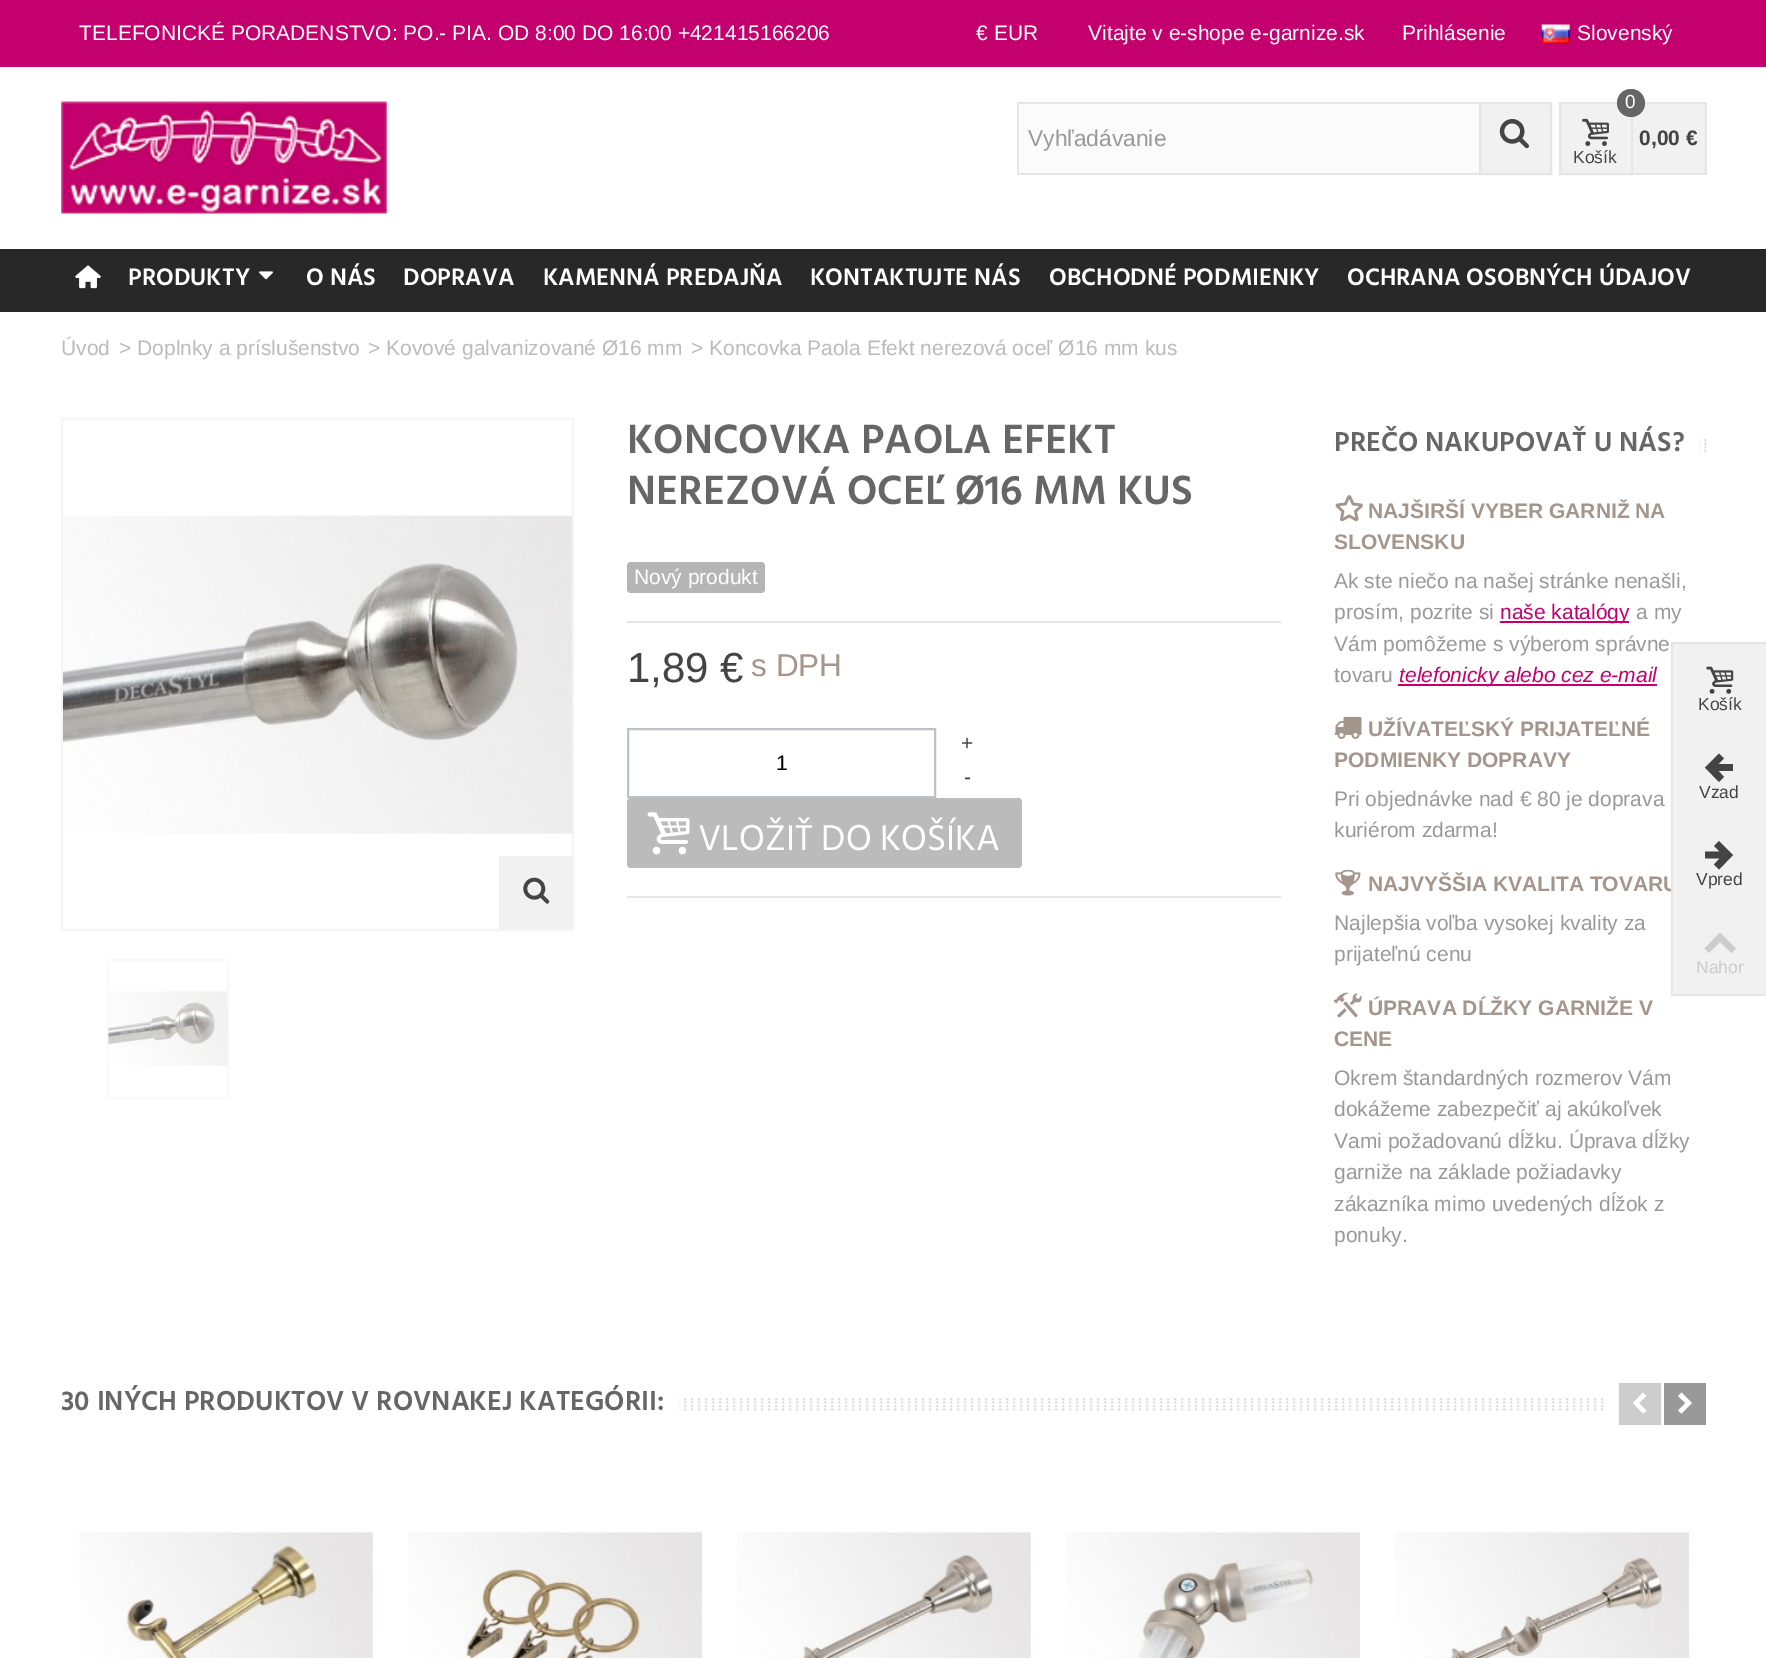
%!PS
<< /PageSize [1766 1658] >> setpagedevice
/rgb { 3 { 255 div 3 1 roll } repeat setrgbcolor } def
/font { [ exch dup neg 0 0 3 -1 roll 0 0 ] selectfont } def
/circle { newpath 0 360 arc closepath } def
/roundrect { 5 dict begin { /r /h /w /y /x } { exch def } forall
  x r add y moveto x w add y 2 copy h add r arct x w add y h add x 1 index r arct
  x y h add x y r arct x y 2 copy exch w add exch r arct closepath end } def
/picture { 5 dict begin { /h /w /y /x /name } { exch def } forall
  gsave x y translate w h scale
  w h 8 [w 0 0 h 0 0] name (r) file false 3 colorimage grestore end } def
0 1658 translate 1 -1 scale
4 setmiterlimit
255 255 255 rgb
0 0 1766 1658 rectfill
195 0 109 rgb
0 0 1766 67 rectfill
(img/1.rgb) 1541 24 29 20 picture
(img/2.rgb) 61 101 326 113 picture
[
  [1019 104 460 69 251 251 251]
  [1017 102 462 2 229 229 229]
  [1017 173 462 2 229 229 229]
  [1017 102 2 73 229 229 229]
] { aload pop rgb rectfill } forall
241 241 241 rgb
1480 103 moveto 1551 103 lineto 1551 174 lineto 1480 174 lineto closepath gsave fill grestore
229 229 229 rgb
2 setlinewidth
stroke
(img/3.rgb) 1499 119 30 30 picture
241 241 241 rgb
1560 103 moveto 1632 103 lineto 1632 174 lineto 1560 174 lineto closepath gsave fill grestore
229 229 229 rgb
stroke
241 241 241 rgb
1633 104 72 69 rectfill
229 229 229 rgb
1644 102 62 2 rectfill
102 102 102 rgb
1631 103 14 circle fill
(img/4.rgb) 1582 118 27 28 picture
[
  [1705 102 2 73 229 229 229]
  [1633 173 73 2 229 229 229]
  [0 249 1766 63 40 40 40]
] { aload pop rgb rectfill } forall
(img/5.rgb) 75 265 26 24 picture
(img/6.rgb) 259 271 14 9 picture
245 245 245 rgb
62 419 511 511 rectstroke
(img/7.rgb) 63 515 509 319 picture
241 241 241 rgb
499 856 73 73 rectfill
(img/8.rgb) 523 877 27 27 picture
249 249 249 rgb
108 960 120 138 rectstroke
(img/9.rgb) 108 991 120 75 picture
181 181 181 rgb
627 562 138 31 4 roundrect fill
229 229 229 rgb
627 621 654 2 rectfill
627 896 654 2 rectfill
189 194 201 rgb
628 729 307 68 rectstroke
187 187 187 rgb
627 798 395 70 4 roundrect fill
(img/10.rgb) 647 812 43 43 picture
(img/11.rgb) 1333 439 374 13 picture
255 255 255 rgb
1334 439 365 13 rectfill
(img/12.rgb) 1335 495 28 27 picture
[
  [1500 621 129 2 195 0 109]
  [1398 684 100 2 195 0 109]
  [1498 684 159 2 195 0 109]
] { aload pop rgb rectfill } forall
(img/13.rgb) 1334 716 28 23 picture
(img/14.rgb) 1335 869 26 27 picture
(img/15.rgb) 1333 992 29 26 picture
(img/21.rgb) 679 1398 1028 13 picture
255 255 255 rgb
1607 1398 57 13 rectfill
204 204 204 rgb
1619 1383 42 42 rectfill
255 255 255 rgb
1633 1403 moveto 1643 1392.5 lineto 1646.5 1396 lineto 1639 1403 lineto 1646.5 1410.5 lineto 1643 1413.5 lineto closepath fill
153 153 153 rgb
1664 1383 42 42 rectfill
255 255 255 rgb
1678 1410.5 moveto 1685.5 1403 lineto 1678 1396 lineto 1681.5 1392.5 lineto 1692 1403 lineto 1681.5 1413.5 lineto closepath fill
(img/16.rgb) 79 1532 294 126 picture
(img/17.rgb) 408 1532 294 126 picture
(img/18.rgb) 737 1532 294 126 picture
(img/19.rgb) 1066 1532 294 126 picture
(img/20.rgb) 1395 1532 294 126 picture
229 229 229 rgb
1671 642 95 2 rectfill
1671 994 95 2 rectfill
/LiberationSans-Regular 21 font
255 255 255 rgb
[
  [(TELEFONICKÉ PORADENSTVO: PO.- PIA. OD 8:00 DO 16:00 +421415166206) 79 40]
  [(€ EUR) 976 40]
  [(Vitajte v e-shope e-garnize.sk) 1088 40]
  [(Prihlásenie) 1402 40]
  [(Slovenský) 1577 40]
] { aload pop moveto show } forall
/LiberationSans-Regular 22.75 font
153 153 153 rgb
1028 146 moveto (Vyhľadávanie) show
/LiberationSans-Regular 19 font
255 255 255 rgb
1625 108 moveto (0) show
/LiberationSans-Regular 17.5 font
68 68 68 rgb
1573 163 moveto (Košík) show
/LiberationSans-Bold 21 font
1639 145 moveto (0,00 €) show
/Hind-SemiBold 24.5 font
255 255 255 rgb
[
  [(PRODUKTY) 128 285]
  [(O NÁS) 306 285]
  [(DOPRAVA) 403 285]
  [(KAMENNÁ PREDAJŇA) 543 285]
  [(KONTAKTUJTE NÁS) 810 285]
  [(OBCHODNÉ PODMIENKY) 1049 285]
  [(OCHRANA OSOBNÝCH ÚDAJOV) 1347 285]
] { aload pop moveto show } forall
/LiberationSans-Regular 21 font
187 187 187 rgb
[
  [(Úvod) 61 355]
  [(>) 119 355]
  [(Doplnky a príslušenstvo) 137 355]
  [(>) 368 355]
  [(Kovové galvanizované Ø16 mm) 386 355]
  [(>) 691 355]
  [(Koncovka Paola Efekt nerezová oceľ Ø16 mm kus) 709 355]
] { aload pop moveto show } forall
/Hind-SemiBold 42 font
102 102 102 rgb
627 453 moveto (KONCOVKA PAOLA EFEKT) show
627 504 moveto (NEREZOVÁ OCEĽ Ø16 MM KUS) show
/LiberationSans-Regular 21 font
255 255 255 rgb
634 584 moveto (Nový produkt) show
/LiberationSans-Regular 42 font
68 68 68 rgb
627 682 moveto (1,89 €) show
/LiberationSans-Regular 31.5 font
164 150 141 rgb
751 676 moveto (s DPH) show
/LiberationSans-Regular 21 font
68 68 68 rgb
961 750 moveto (+) show
0 0 0 rgb
776 770 moveto (1) show
68 68 68 rgb
964 784 moveto (-) show
/Hind-Regular 36.75 font
255 255 255 rgb
698 850 moveto (VLOŽIŤ DO KOŠÍKA) show
/Hind-SemiBold 28 font
102 102 102 rgb
1334 451 moveto (PREČO NAKUPOVAŤ U NÁS?) show
/LiberationSans-Bold 21 font
164 150 141 rgb
1368 518 moveto (NAJŠIRŠÍ VYBER GARNIŽ NA) show
1334 549 moveto (SLOVENSKU) show
/LiberationSans-Regular 21 font
153 153 153 rgb
1334 588 moveto (Ak ste niečo na našej stránke nenašli,) show
1334 619 moveto (prosím, pozrite si) show
195 0 109 rgb
1500 619 moveto (naše katalógy) show
153 153 153 rgb
[
  [(a my) 1636 619]
  [(Vám pomôžeme s výberom správne) 1334 651]
  [(tovaru) 1334 682]
] { aload pop moveto show } forall
/LiberationSans-Italic 21 font
195 0 109 rgb
1399 682 moveto (telefonicky alebo cez e-mail) show
/LiberationSans-Bold 21 font
164 150 141 rgb
1368 736 moveto (UŽÍVATEĽSKÝ PRIJATEĽNÉ) show
1334 767 moveto (PODMIENKY DOPRAVY) show
/LiberationSans-Regular 21 font
153 153 153 rgb
1334 806 moveto (Pri objednávke nad € 80 je doprava) show
1334 837 moveto (kuriérom zdarma!) show
/LiberationSans-Bold 21 font
164 150 141 rgb
1368 891 moveto (NAJVYŠŠIA KVALITA TOVARU) show
/LiberationSans-Regular 21 font
153 153 153 rgb
1334 930 moveto (Najlepšia voľba vysokej kvality za) show
1334 961 moveto (prijateľnú cenu) show
/LiberationSans-Bold 21 font
164 150 141 rgb
1368 1015 moveto (ÚPRAVA DĹŽKY GARNIŽE V) show
1334 1046 moveto (CENE) show
/LiberationSans-Regular 21 font
153 153 153 rgb
[
  [(Okrem štandardných rozmerov Vám) 1334 1085]
  [(dokážeme zabezpečiť aj akúkoľvek) 1334 1116]
  [(Vami požadovanú dĺžku. Úprava dĺžky) 1334 1148]
  [(garniže na základe požiadavky) 1334 1179]
  [(zákazníka mimo uvedených dĺžok z) 1334 1211]
  [(ponuky.) 1334 1242]
] { aload pop moveto show } forall
/Hind-SemiBold 28 font
102 102 102 rgb
61 1410 moveto (30 INÝCH PRODUKTOV V ROVNAKEJ KATEGÓRII:) show
241 241 241 rgb
1673 644 93 350 rectfill
229 229 229 rgb
1671 644 2 350 rectfill
(img/22.rgb) 1706 666 28 28 picture
/LiberationSans-Regular 17.5 font
68 68 68 rgb
1698 710 moveto (Košík) show
1719 782 moveto 1705 767.5 lineto 1719 753.5 lineto 1724 758.5 lineto 1718.5 764 lineto 1733 764 lineto 1733 771 lineto 1718.5 771 lineto 1724 777 lineto closepath fill
1699 798 moveto (Vzad) show
1719 841 moveto 1733 855 lineto 1719 869.5 lineto 1714 864.5 lineto 1719.5 858.5 lineto 1705 858.5 lineto 1705 851.5 lineto 1719.5 851.5 lineto 1714 846 lineto closepath fill
1696 885 moveto (Vpred) show
204 204 204 rgb
1704.5 948.5 moveto 1720 932.5 lineto 1736 948.5 lineto 1731.5 953 lineto 1720 942 lineto 1709 953 lineto closepath fill
1696 973 moveto (Nahor) show
showpage
